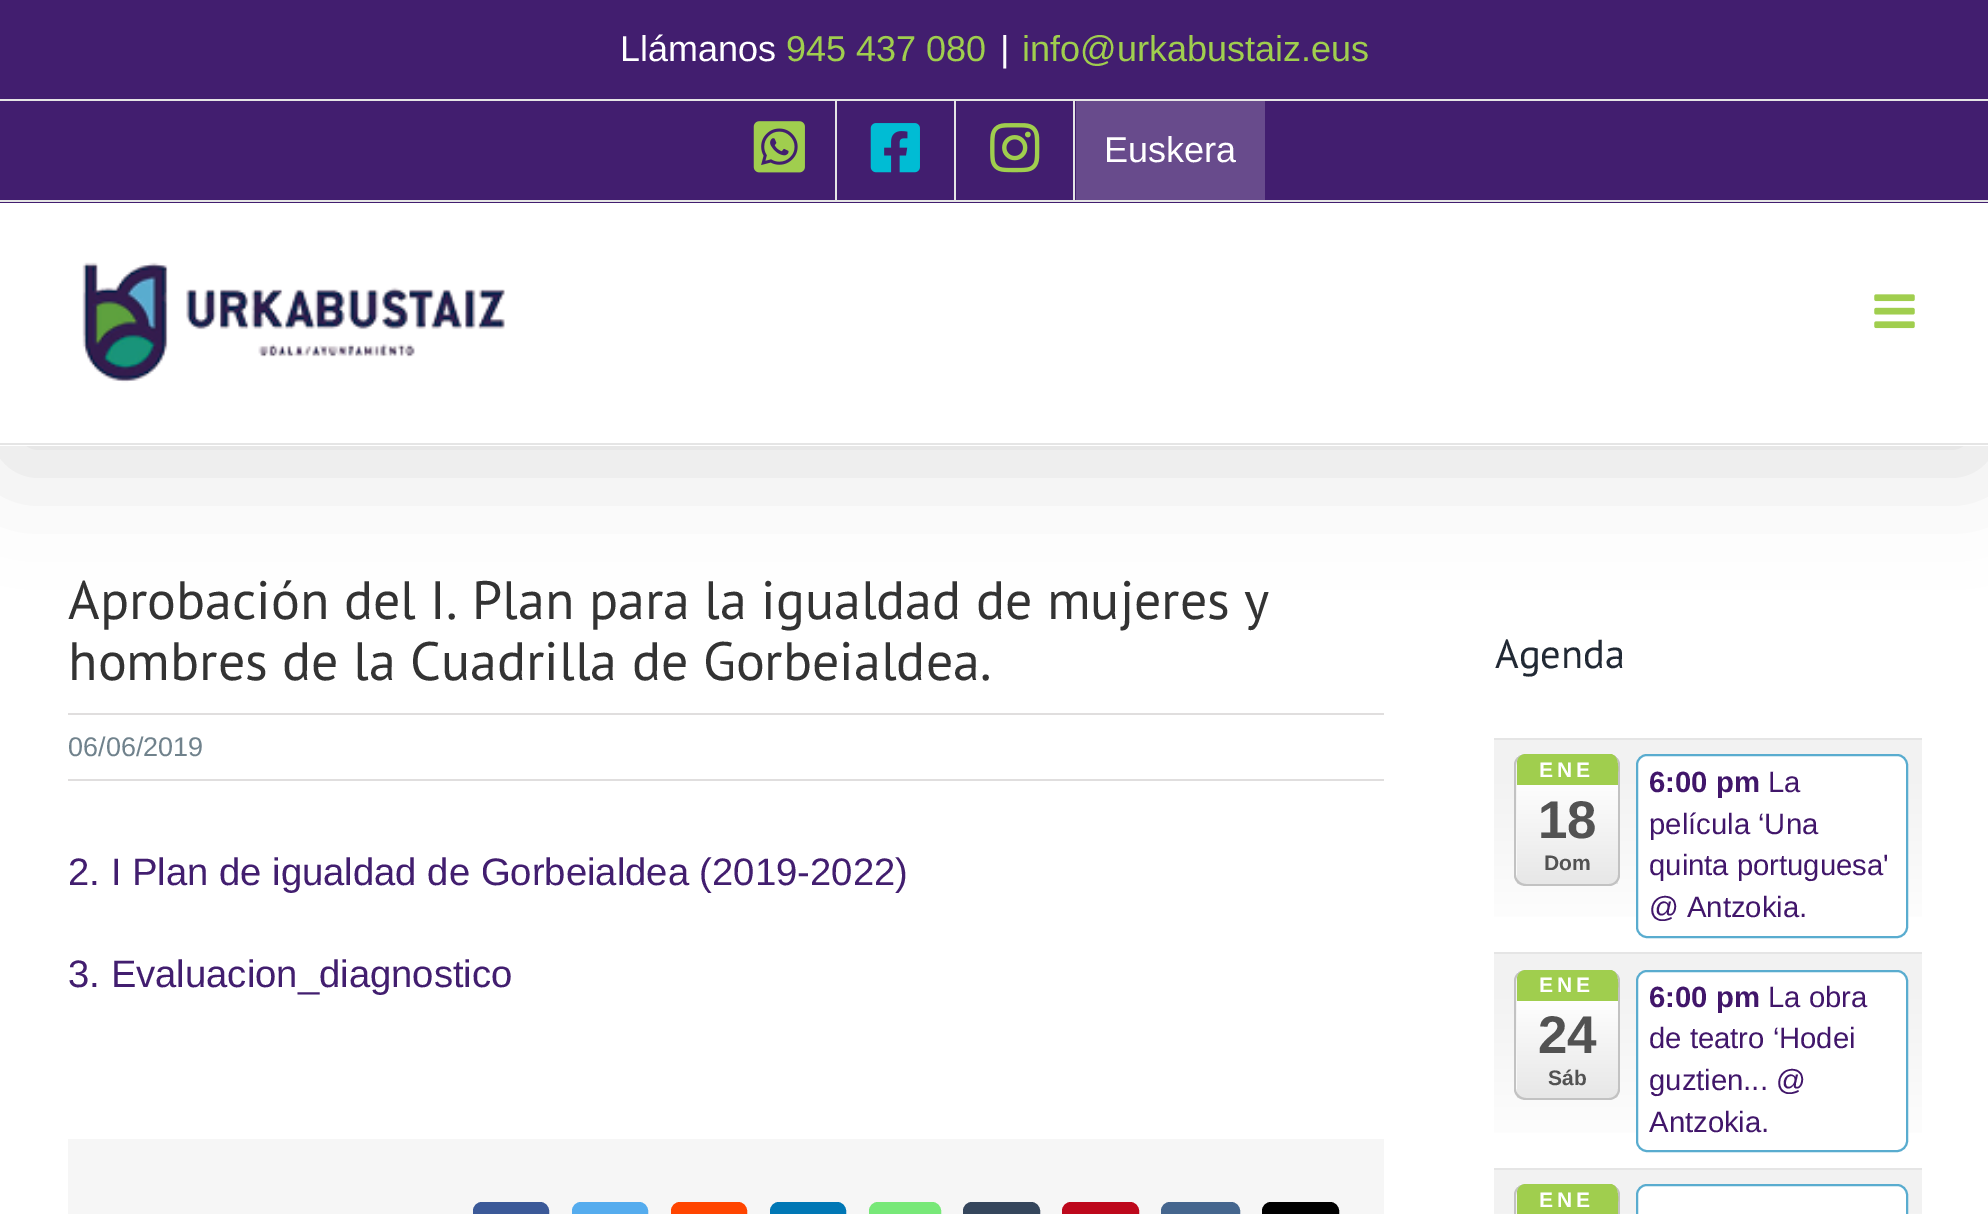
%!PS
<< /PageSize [1988 1214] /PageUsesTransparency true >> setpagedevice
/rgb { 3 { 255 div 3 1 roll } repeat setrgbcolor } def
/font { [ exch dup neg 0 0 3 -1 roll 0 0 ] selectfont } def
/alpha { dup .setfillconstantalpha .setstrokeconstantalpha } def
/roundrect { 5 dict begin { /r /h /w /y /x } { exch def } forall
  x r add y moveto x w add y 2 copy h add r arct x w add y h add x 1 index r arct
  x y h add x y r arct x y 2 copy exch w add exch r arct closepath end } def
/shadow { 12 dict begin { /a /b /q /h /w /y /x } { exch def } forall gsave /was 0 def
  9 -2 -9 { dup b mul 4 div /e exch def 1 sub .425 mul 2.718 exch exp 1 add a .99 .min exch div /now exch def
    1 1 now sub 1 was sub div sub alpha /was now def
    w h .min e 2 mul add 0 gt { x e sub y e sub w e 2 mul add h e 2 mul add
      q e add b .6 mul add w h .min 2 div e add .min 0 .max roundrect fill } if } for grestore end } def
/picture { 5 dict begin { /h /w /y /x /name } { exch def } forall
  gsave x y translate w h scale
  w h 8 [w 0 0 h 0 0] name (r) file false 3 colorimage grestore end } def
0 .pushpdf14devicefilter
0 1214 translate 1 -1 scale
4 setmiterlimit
255 255 255 rgb
0 0 1988 1214 rectfill
0 0 0 rgb
5 27 1980 437 0 56 0.14 shadow
[
  [0 0 1988 203 66 30 111]
  [0 200 1988 2 229 229 229]
  [0 99 1988 2 229 229 229]
] { aload pop rgb rectfill } forall
(img/1.rgb) 753 121 52 52 picture
835 101 2 99 rectfill
(img/2.rgb) 870 123 50 50 picture
954 101 2 99 rectfill
(img/3.rgb) 990 123 50 50 picture
[
  [1073 101 2 99 229 229 229]
  [1076 101 189 99 104 75 140]
  [0 203 1988 243 255 255 255]
  [0 443 1988 2 229 229 229]
] { aload pop rgb rectfill } forall
(img/4.rgb) 82 262 423 121 picture
(img/5.rgb) 1874 294 41 35 picture
[
  [68 713 1316 2 224 222 222]
  [68 779 1316 2 224 222 222]
  [68 1139 1316 75 246 246 246]
] { aload pop rgb rectfill } forall
59 89 152 rgb
474 1203 74 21 8 roundrect gsave fill grestore
2 setlinewidth
stroke
85 172 238 rgb
573 1203 74 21 8 roundrect gsave fill grestore
stroke
255 69 0 rgb
672 1203 74 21 8 roundrect gsave fill grestore
stroke
0 119 181 rgb
771 1203 74 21 8 roundrect gsave fill grestore
stroke
119 232 120 rgb
870 1203 70 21 8 roundrect gsave fill grestore
stroke
53 70 92 rgb
964 1203 75 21 8 roundrect gsave fill grestore
stroke
189 8 28 rgb
1063 1203 75 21 8 roundrect gsave fill grestore
stroke
69 102 142 rgb
1162 1203 77 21 8 roundrect gsave fill grestore
stroke
0 0 0 rgb
1263 1203 75 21 8 roundrect gsave fill grestore
stroke
gsave 1494 740 moveto 1922 740 lineto 1922 917 lineto 1494 917 lineto closepath clip newpath
<< /ShadingType 2 /ColorSpace /DeviceRGB /Coords [1708 740 1708 952] /Extend [true true] /Function << /FunctionType 3 /Domain [0 1] /Functions [<< /FunctionType 2 /Domain [0 1] /C0 [0.949 0.949 0.949] /C1 [0.949 0.949 0.949] /N 1 >> << /FunctionType 2 /Domain [0 1] /C0 [0.949 0.949 0.949] /C1 [1 1 1] /N 1 >>] /Bounds [0.14] /Encode [0 1 0 1] >> >> shfill grestore
229 229 229 rgb
1494 738 428 2 rectfill
gsave
1514 754 106 133 11 roundrect clip newpath
gsave 1517 754 moveto 1618 754 lineto 1618 884 lineto 1517 884 lineto closepath clip newpath
<< /ShadingType 2 /ColorSpace /DeviceRGB /Coords [1567 754 1567 884] /Extend [true true] /Function << /FunctionType 3 /Domain [0 1] /Functions [<< /FunctionType 2 /Domain [0 1] /C0 [1 1 1] /C1 [1 1 1] /N 1 >> << /FunctionType 2 /Domain [0 1] /C0 [1 1 1] /C1 [0.906 0.906 0.906] /N 1 >>] /Bounds [0.2] /Encode [0 1 0 1] >> >> shfill grestore
grestore
194 194 194 rgb
1526 754 moveto 1609 754 lineto 1615 754 1620 759 1620 765 curveto 1620 875 lineto 1620 881 1615 886 1609 886 curveto 1526 886 lineto 1519 886 1514 881 1514 875 curveto 1514 765 lineto 1514 759 1519 754 1526 754 curveto closepath 1526 754 moveto 1609 754 lineto 1614 754 1618 759 1618 765 curveto 1618 875 lineto 1618 880 1614 884 1609 884 curveto 1526 884 lineto 1521 884 1516 880 1516 875 curveto 1516 765 lineto 1516 759 1521 754 1526 754 curveto closepath eofill
160 206 78 rgb
1526 754 moveto 1611 754 lineto 1619 756 1618 766 1618 772 curveto 1618 785 lineto 1517 785 lineto 1517 763 lineto 1517 758 1521 754 1526 754 curveto closepath fill
255 255 255 rgb
1637 755 270 182 10 roundrect gsave fill grestore
89 172 207 rgb
stroke
gsave 1494 954 moveto 1922 954 lineto 1922 1133 lineto 1494 1133 lineto closepath clip newpath
<< /ShadingType 2 /ColorSpace /DeviceRGB /Coords [1708 954 1708 1168] /Extend [true true] /Function << /FunctionType 3 /Domain [0 1] /Functions [<< /FunctionType 2 /Domain [0 1] /C0 [0.949 0.949 0.949] /C1 [0.949 0.949 0.949] /N 1 >> << /FunctionType 2 /Domain [0 1] /C0 [0.949 0.949 0.949] /C1 [1 1 1] /N 1 >>] /Bounds [0.14] /Encode [0 1 0 1] >> >> shfill grestore
229 229 229 rgb
1494 952 428 2 rectfill
gsave
1514 970 106 130 11 roundrect clip newpath
gsave 1517 970 moveto 1618 970 lineto 1618 1098 lineto 1517 1098 lineto closepath clip newpath
<< /ShadingType 2 /ColorSpace /DeviceRGB /Coords [1567 970 1567 1098] /Extend [true true] /Function << /FunctionType 3 /Domain [0 1] /Functions [<< /FunctionType 2 /Domain [0 1] /C0 [1 1 1] /C1 [1 1 1] /N 1 >> << /FunctionType 2 /Domain [0 1] /C0 [1 1 1] /C1 [0.906 0.906 0.906] /N 1 >>] /Bounds [0.21] /Encode [0 1 0 1] >> >> shfill grestore
grestore
194 194 194 rgb
1526 970 moveto 1609 970 lineto 1615 970 1620 975 1620 981 curveto 1620 1089 lineto 1620 1095 1615 1100 1609 1100 curveto 1526 1100 lineto 1519 1100 1514 1095 1514 1089 curveto 1514 981 lineto 1514 975 1519 970 1526 970 curveto closepath 1526 970 moveto 1609 970 lineto 1614 970 1618 975 1618 981 curveto 1618 1089 lineto 1618 1094 1614 1098 1609 1098 curveto 1526 1098 lineto 1521 1098 1516 1094 1516 1089 curveto 1516 981 lineto 1516 975 1521 970 1526 970 curveto closepath eofill
160 206 78 rgb
1526 970 moveto 1611 970 lineto 1619 972 1618 982 1618 988 curveto 1618 1001 lineto 1517 1001 lineto 1517 979 lineto 1517 974 1521 970 1526 970 curveto closepath fill
255 255 255 rgb
1637 971 270 180 10 roundrect gsave fill grestore
89 172 207 rgb
stroke
gsave 1494 1170 moveto 1922 1170 lineto 1922 1214 lineto 1494 1214 lineto closepath clip newpath
<< /ShadingType 2 /ColorSpace /DeviceRGB /Coords [1708 1170 1708 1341] /Extend [true true] /Function << /FunctionType 3 /Domain [0 1] /Functions [<< /FunctionType 2 /Domain [0 1] /C0 [0.949 0.949 0.949] /C1 [0.949 0.949 0.949] /N 1 >> << /FunctionType 2 /Domain [0 1] /C0 [0.949 0.949 0.949] /C1 [1 1 1] /N 1 >>] /Bounds [0.17] /Encode [0 1 0 1] >> >> shfill grestore
229 229 229 rgb
1494 1168 428 2 rectfill
gsave
1514 1184 106 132 11 roundrect clip newpath
gsave 1517 1184 moveto 1618 1184 lineto 1618 1196 lineto 1517 1196 lineto closepath clip newpath
<< /ShadingType 2 /ColorSpace /DeviceRGB /Coords [1567 1184 1567 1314] /Extend [true true] /Function << /FunctionType 3 /Domain [0 1] /Functions [<< /FunctionType 2 /Domain [0 1] /C0 [1 1 1] /C1 [1 1 1] /N 1 >> << /FunctionType 2 /Domain [0 1] /C0 [1 1 1] /C1 [0.906 0.906 0.906] /N 1 >>] /Bounds [0.2] /Encode [0 1 0 1] >> >> shfill grestore
grestore
194 194 194 rgb
1526 1184 moveto 1609 1184 lineto 1615 1184 1620 1189 1620 1195 curveto 1620 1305 lineto 1620 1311 1615 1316 1609 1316 curveto 1526 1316 lineto 1519 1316 1514 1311 1514 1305 curveto 1514 1195 lineto 1514 1189 1519 1184 1526 1184 curveto closepath 1526 1184 moveto 1609 1184 lineto 1614 1184 1618 1189 1618 1195 curveto 1618 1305 lineto 1618 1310 1614 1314 1609 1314 curveto 1526 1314 lineto 1521 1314 1516 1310 1516 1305 curveto 1516 1195 lineto 1516 1189 1521 1184 1526 1184 curveto closepath eofill
160 206 78 rgb
1526 1184 moveto 1611 1184 lineto 1619 1186 1618 1196 1618 1202 curveto 1618 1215 lineto 1517 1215 lineto 1517 1193 lineto 1517 1188 1521 1184 1526 1184 curveto closepath fill
255 255 255 rgb
1637 1185 270 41 10 roundrect gsave fill grestore
89 172 207 rgb
stroke
/LiberationSans-Regular 36 font
255 255 255 rgb
620 61 moveto (Llámanos) show
160 206 78 rgb
786 61 moveto (945 437 080) show
255 255 255 rgb
1000 61 moveto (|) show
160 206 78 rgb
1022 61 moveto (info@urkabustaiz.eus) show
255 255 255 rgb
1104 162 moveto (Euskera) show
/PTSans-Regular 54 font
51 51 51 rgb
68 619 moveto (Aprobación del I. Plan para la igualdad de mujeres y) show
68 680 moveto (hombres de la Cuadrilla de Gorbeialdea.) show
/LiberationSans-Regular 27 font
112 130 140 rgb
68 756 moveto (06/06/2019) show
/LiberationSans-Regular 38.25 font
66 30 111 rgb
68 885 moveto (2. I Plan de igualdad de Gorbeialdea \(2019-2022\)) show
68 987 moveto (3. Evaluacion_diagnostico) show
/PTSans-Regular 40.5 font
33 41 52 rgb
1495 668 moveto (Agenda) show
/LiberationSans-Bold 21 font
255 255 255 rgb
1539 777 moveto 4 0 (ENE) ashow
/LiberationSans-Bold 53 font
82 82 82 rgb
1538 838 moveto (18) show
/LiberationSans-Bold 21 font
1544 870 moveto (Dom) show
/LiberationSans-Bold 29.25 font
65 22 106 rgb
1649 792 moveto (6:00 pm) show
/LiberationSans-Regular 29.25 font
[
  [(La) 1768 792]
  [(película ‘Una) 1649 834]
  [(quinta portuguesa') 1649 875]
  [(@ Antzokia.) 1649 917]
] { aload pop moveto show } forall
/LiberationSans-Bold 21 font
255 255 255 rgb
1539 992 moveto 4 0 (ENE) ashow
/LiberationSans-Bold 53 font
82 82 82 rgb
1538 1053 moveto (24) show
/LiberationSans-Bold 21 font
1548 1085 moveto (Sáb) show
/LiberationSans-Bold 29.25 font
65 22 106 rgb
1649 1007 moveto (6:00 pm) show
/LiberationSans-Regular 29.25 font
[
  [(La obra) 1768 1007]
  [(de teatro ‘Hodei) 1649 1048]
  [(guztien... @) 1649 1090]
  [(Antzokia.) 1649 1132]
] { aload pop moveto show } forall
/LiberationSans-Bold 21 font
255 255 255 rgb
1539 1207 moveto 4 0 (ENE) ashow
.poppdf14devicefilter showpage
